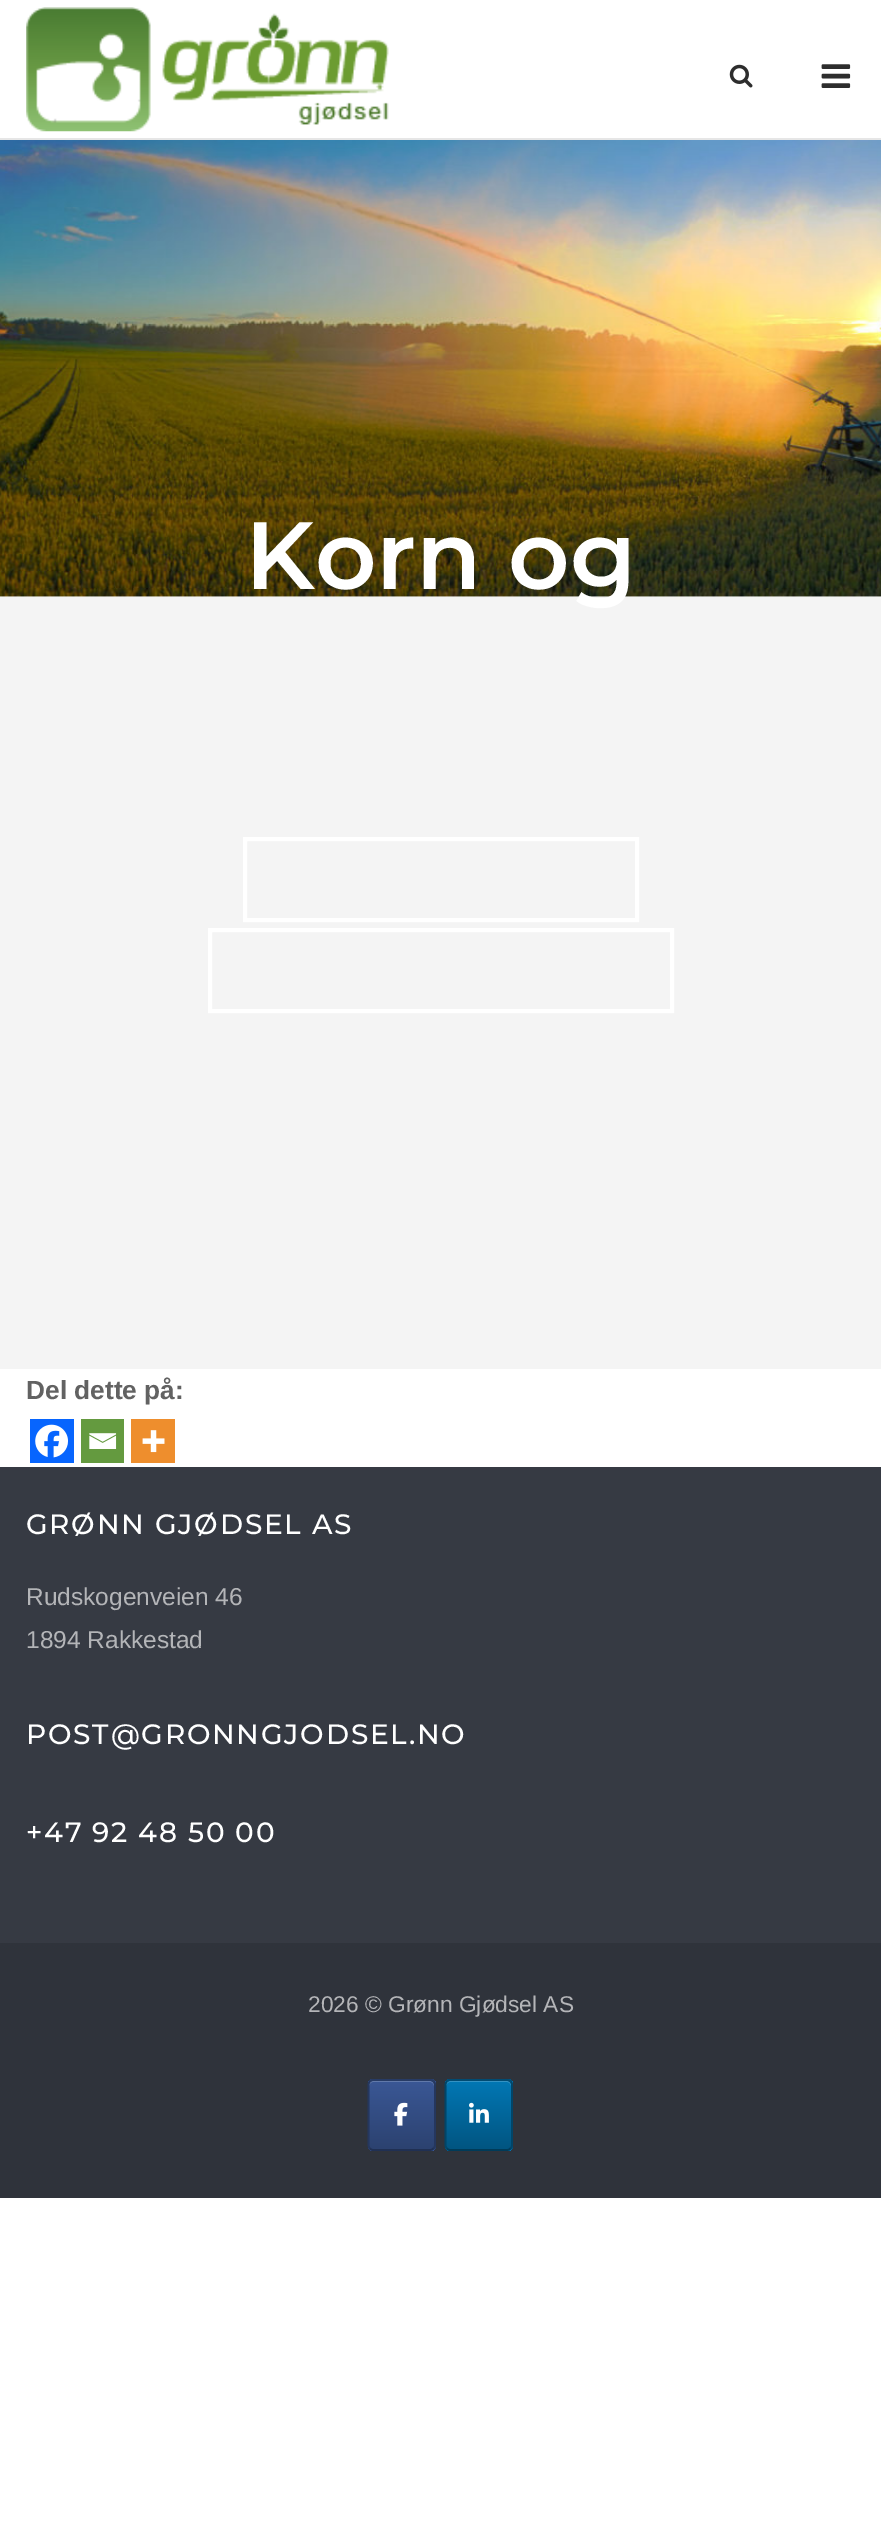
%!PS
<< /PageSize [881 2532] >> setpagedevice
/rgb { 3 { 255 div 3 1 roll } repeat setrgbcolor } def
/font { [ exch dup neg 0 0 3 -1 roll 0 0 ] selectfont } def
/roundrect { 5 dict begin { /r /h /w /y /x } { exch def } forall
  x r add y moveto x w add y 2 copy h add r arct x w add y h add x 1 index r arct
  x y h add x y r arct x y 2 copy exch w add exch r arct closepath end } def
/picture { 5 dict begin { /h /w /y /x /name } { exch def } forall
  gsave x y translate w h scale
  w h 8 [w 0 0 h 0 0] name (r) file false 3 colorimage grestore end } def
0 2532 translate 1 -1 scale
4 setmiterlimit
255 255 255 rgb
0 0 881 2532 rectfill
230 230 230 rgb
0 138 881 2 rectfill
(img/1.rgb) 26 7 363 125 picture
(img/2.rgb) 729 64 24 24 picture
(img/3.rgb) 821 64 30 24 picture
244 244 244 rgb
0 596 881 773 rectfill
(img/4.rgb) 0 140 881 457 picture
255 255 255 rgb
4 setlinewidth
245 839 392 81 rectstroke
210 930 462 81 rectstroke
7 101 254 rgb
30 1419 44 44 rectfill
(img/5.rgb) 35 1424 33 34 picture
100 154 63 rgb
81 1419 43 44 rectfill
(img/6.rgb) 89 1433 28 16 picture
238 142 45 rgb
131 1419 44 44 rectfill
(img/7.rgb) 142 1430 23 23 picture
54 58 67 rgb
0 1467 881 476 rectfill
47 51 59 rgb
0 1943 881 255 rectfill
gsave
368 2079 68 72 5 roundrect clip newpath
gsave 368 2079 moveto 436 2079 lineto 436 2081 lineto 368 2081 lineto closepath clip newpath
<< /ShadingType 2 /ColorSpace /DeviceRGB /Coords [369 2081 369 2013] /Extend [true true] /Function << /FunctionType 2 /Domain [0 1] /C0 [0.173 0.259 0.439] /C1 [0.227 0.341 0.584] /N 1 >> >> shfill grestore
gsave 368 2081 moveto 436 2081 lineto 436 2149 lineto 368 2149 lineto closepath clip newpath
<< /ShadingType 2 /ColorSpace /DeviceRGB /Coords [369 2149 369 2081] /Extend [true true] /Function << /FunctionType 2 /Domain [0 1] /C0 [0.173 0.259 0.439] /C1 [0.227 0.341 0.584] /N 1 >> >> shfill grestore
gsave 368 2149 moveto 436 2149 lineto 436 2151 lineto 368 2151 lineto closepath clip newpath
<< /ShadingType 2 /ColorSpace /DeviceRGB /Coords [369 2217 369 2149] /Extend [true true] /Function << /FunctionType 2 /Domain [0 1] /C0 [0.173 0.259 0.439] /C1 [0.227 0.341 0.584] /N 1 >> >> shfill grestore
grestore
97 121 170 rgb
373 2082 moveto 430 2082 lineto 432 2082 434 2084 434 2086 curveto 434 2079 426 2081 420 2081 curveto 382 2081 lineto 377 2081 369 2079 369 2086 curveto 369 2084 371 2082 373 2082 curveto closepath fill
39 59 101 rgb
1.8 setlinewidth
370 2081.5 moveto 370.5 2080.5 372 2080 373 2080 curveto 430 2080 lineto 431.5 2080 432.5 2080.5 433.5 2081.5 curveto stroke
37 55 94 rgb
433.5 2081.5 moveto 434.5 2082 435 2083.5 435 2084.5 curveto 435 2145 lineto 435 2146.5 434.5 2147.5 433.5 2148.5 curveto stroke
32 48 83 rgb
433.5 2148.5 moveto 432.5 2149.5 431.5 2150 430 2150 curveto 373 2150 lineto 372 2150 370.5 2149.5 370 2148.5 curveto stroke
37 55 94 rgb
370 2148.5 moveto 369 2147.5 368.5 2146.5 368.5 2145 curveto 368.5 2084.5 lineto 368.5 2083.5 369 2082 370 2081.5 curveto stroke
(img/8.rgb) 394 2102 14 24 picture
gsave
445 2079 68 72 5 roundrect clip newpath
gsave 445 2079 moveto 513 2079 lineto 513 2081 lineto 445 2081 lineto closepath clip newpath
<< /ShadingType 2 /ColorSpace /DeviceRGB /Coords [446 2081 446 2013] /Extend [true true] /Function << /FunctionType 2 /Domain [0 1] /C0 [0.004 0.333 0.506] /C1 [0.004 0.467 0.706] /N 1 >> >> shfill grestore
gsave 445 2081 moveto 513 2081 lineto 513 2149 lineto 445 2149 lineto closepath clip newpath
<< /ShadingType 2 /ColorSpace /DeviceRGB /Coords [446 2149 446 2081] /Extend [true true] /Function << /FunctionType 2 /Domain [0 1] /C0 [0.004 0.333 0.506] /C1 [0.004 0.467 0.706] /N 1 >> >> shfill grestore
gsave 445 2149 moveto 513 2149 lineto 513 2151 lineto 445 2151 lineto closepath clip newpath
<< /ShadingType 2 /ColorSpace /DeviceRGB /Coords [446 2217 446 2149] /Extend [true true] /Function << /FunctionType 2 /Domain [0 1] /C0 [0.004 0.333 0.506] /C1 [0.004 0.467 0.706] /N 1 >> >> shfill grestore
grestore
52 146 195 rgb
450 2082 moveto 507 2082 lineto 509 2082 511 2084 511 2086 curveto 511 2079 503 2081 498 2081 curveto 460 2081 lineto 454 2081 446 2079 446 2086 curveto 446 2084 448 2082 450 2082 curveto closepath fill
1 75 114 rgb
447 2081.5 moveto 447.5 2080.5 449 2080 450 2080 curveto 507 2080 lineto 508.5 2080 509.5 2080.5 510.5 2081.5 curveto stroke
1 69 104 rgb
510.5 2081.5 moveto 511.5 2082 512 2083.5 512 2084.5 curveto 512 2145 lineto 512 2146.5 511.5 2147.5 510.5 2148.5 curveto stroke
0 59 89 rgb
510.5 2148.5 moveto 509.5 2149.5 508.5 2150 507 2150 curveto 450 2150 lineto 449 2150 447.5 2149.5 447 2148.5 curveto stroke
1 69 104 rgb
447 2148.5 moveto 446 2147.5 445.5 2146.5 445.5 2145 curveto 445.5 2084.5 lineto 445.5 2083.5 446 2082 447 2081.5 curveto stroke
(img/9.rgb) 469 2102 20 21 picture
/Montserrat-SemiBold 95.5 font
255 255 255 rgb
245 589 moveto (Korn og) show
/LiberationSans-Bold 26.25 font
98 98 98 rgb
26 1399 moveto (Del dette på:) show
/Montserrat-Medium 28 font
255 255 255 rgb
26 1534 moveto 1.75 0 (GRØNN GJØDSEL AS) ashow
/LiberationSans-Regular 24.5 font
180 181 184 rgb
26 1605 moveto (Rudskogenveien 46) show
26 1648 moveto (1894 Rakkestad) show
/Montserrat-Medium 28 font
255 255 255 rgb
26 1744 moveto 1.75 0 (POST@GRONNGJODSEL.NO) ashow
26 1842 moveto 1.75 0 (+47 92 48 50 00) ashow
/LiberationSans-Regular 22.75 font
180 181 184 rgb
308 2012 moveto (2026 © Grønn Gjødsel AS) show
showpage
